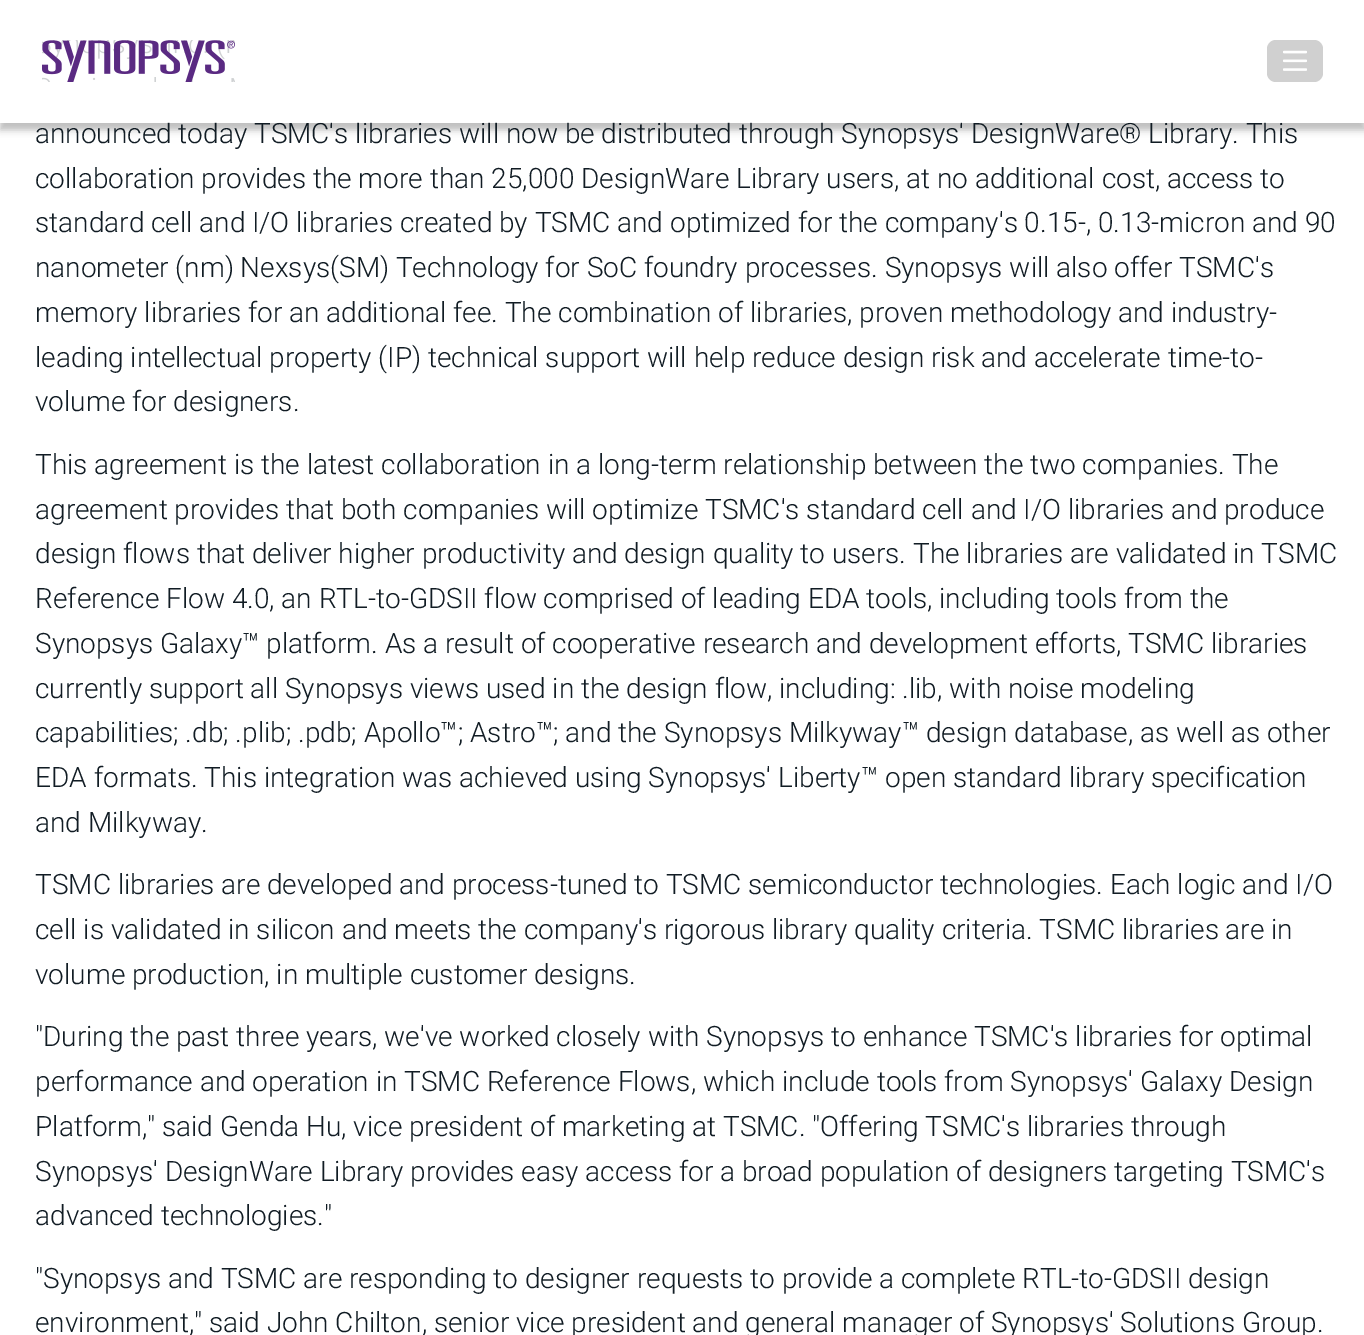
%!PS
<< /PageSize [1364 1335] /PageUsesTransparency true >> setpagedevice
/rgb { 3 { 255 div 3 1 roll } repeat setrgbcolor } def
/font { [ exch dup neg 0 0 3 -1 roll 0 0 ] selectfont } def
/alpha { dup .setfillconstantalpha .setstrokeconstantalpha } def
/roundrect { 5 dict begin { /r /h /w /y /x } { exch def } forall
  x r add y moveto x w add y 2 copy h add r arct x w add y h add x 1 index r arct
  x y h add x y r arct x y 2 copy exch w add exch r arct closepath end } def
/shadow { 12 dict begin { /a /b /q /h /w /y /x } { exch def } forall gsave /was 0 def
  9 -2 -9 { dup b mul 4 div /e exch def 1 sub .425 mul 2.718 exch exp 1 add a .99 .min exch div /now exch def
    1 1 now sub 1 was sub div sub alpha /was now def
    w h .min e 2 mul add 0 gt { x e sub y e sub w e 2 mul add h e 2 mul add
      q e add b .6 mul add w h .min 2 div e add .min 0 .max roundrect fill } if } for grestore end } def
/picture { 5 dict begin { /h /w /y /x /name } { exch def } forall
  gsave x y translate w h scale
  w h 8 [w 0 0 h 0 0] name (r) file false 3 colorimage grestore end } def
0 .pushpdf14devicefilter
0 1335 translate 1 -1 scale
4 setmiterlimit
255 255 255 rgb
0 0 1364 1335 rectfill
gsave
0 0 moveto 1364 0 lineto 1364 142 lineto 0 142 lineto closepath 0 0 moveto 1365 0 lineto 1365 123 lineto 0 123 lineto closepath eoclip newpath
0 0 0 rgb
0 7 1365 123 0 3.5 0.25 shadow
grestore
(img/1.rgb) 42 40 193 42 picture
0.8 alpha
196 196 196 rgb
1267 40 56 42 9 roundrect fill
1 alpha
(img/2.rgb) 1283 50 24 21 picture
/Roboto-Light 28 font
17 28 36 rgb
35 143 moveto (announced today TSMC's libraries will now be distributed through Synopsys' DesignWare® Library. This) show
0.8 alpha
255 255 255 rgb
0 122 1364 1 rectfill
1 alpha
17 28 36 rgb
[
  [(collaboration provides the more than 25,000 DesignWare Library users, at no additional cost, access to) 35 188]
  [(standard cell and I/O libraries created by TSMC and optimized for the company's 0.15-, 0.13-micron and 90) 35 232]
  [(nanometer \(nm\) Nexsys\(SM\) Technology for SoC foundry processes. Synopsys will also offer TSMC's) 35 277]
  [(memory libraries for an additional fee. The combination of libraries, proven methodology and industry-) 35 322]
  [(leading intellectual property \(IP\) technical support will help reduce design risk and accelerate time-to-) 35 367]
  [(volume for designers.) 35 411]
  [(This agreement is the latest collaboration in a long-term relationship between the two companies. The) 35 474]
  [(agreement provides that both companies will optimize TSMC's standard cell and I/O libraries and produce) 35 519]
  [(design flows that deliver higher productivity and design quality to users. The libraries are validated in TSMC) 35 563]
  [(Reference Flow 4.0, an RTL-to-GDSII flow comprised of leading EDA tools, including tools from the) 35 608]
  [(Synopsys Galaxy™ platform. As a result of cooperative research and development efforts, TSMC libraries) 35 653]
  [(currently support all Synopsys views used in the design flow, including: .lib, with noise modeling) 35 698]
  [(capabilities; .db; .plib; .pdb; Apollo™; Astro™; and the Synopsys Milkyway™ design database, as well as other) 35 742]
  [(EDA formats. This integration was achieved using Synopsys' Liberty™ open standard library specification) 35 787]
  [(and Milkyway.) 35 832]
  [(TSMC libraries are developed and process-tuned to TSMC semiconductor technologies. Each logic and I/O) 35 894]
  [(cell is validated in silicon and meets the company's rigorous library quality criteria. TSMC libraries are in) 35 939]
  [(volume production, in multiple customer designs.) 35 984]
  [("During the past three years, we've worked closely with Synopsys to enhance TSMC's libraries for optimal) 35 1046]
  [(performance and operation in TSMC Reference Flows, which include tools from Synopsys' Galaxy Design) 35 1091]
  [(Platform," said Genda Hu, vice president of marketing at TSMC. "Offering TSMC's libraries through) 35 1136]
  [(Synopsys' DesignWare Library provides easy access for a broad population of designers targeting TSMC's) 35 1181]
  [(advanced technologies.") 35 1225]
  [("Synopsys and TSMC are responding to designer requests to provide a complete RTL-to-GDSII design) 35 1288]
  [(environment," said John Chilton, senior vice president and general manager of Synopsys' Solutions Group.) 35 1332]
] { aload pop moveto show } forall
.poppdf14devicefilter showpage
